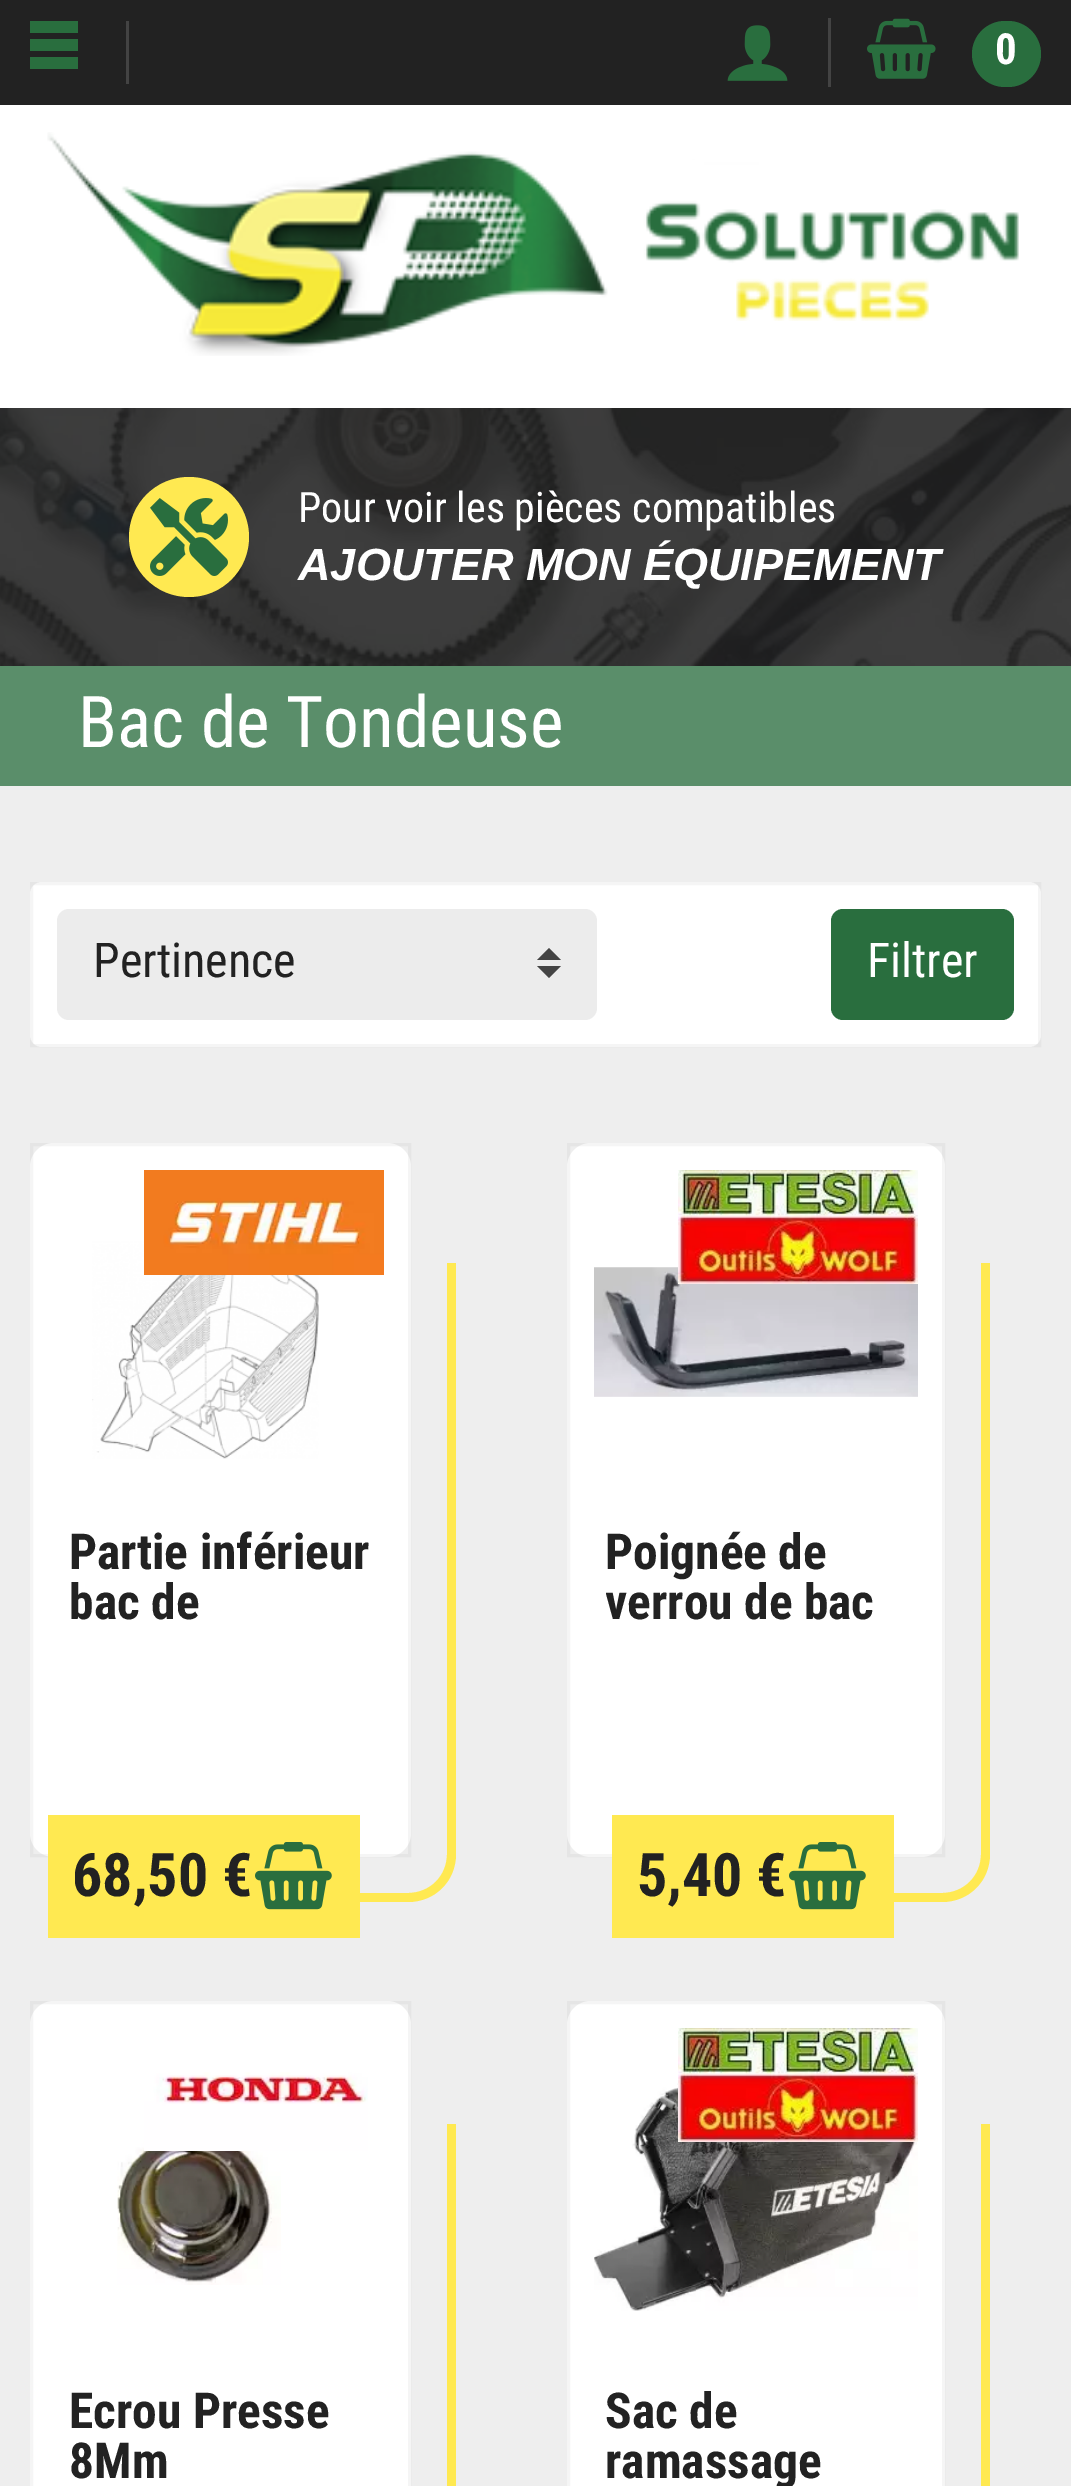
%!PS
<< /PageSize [1071 2486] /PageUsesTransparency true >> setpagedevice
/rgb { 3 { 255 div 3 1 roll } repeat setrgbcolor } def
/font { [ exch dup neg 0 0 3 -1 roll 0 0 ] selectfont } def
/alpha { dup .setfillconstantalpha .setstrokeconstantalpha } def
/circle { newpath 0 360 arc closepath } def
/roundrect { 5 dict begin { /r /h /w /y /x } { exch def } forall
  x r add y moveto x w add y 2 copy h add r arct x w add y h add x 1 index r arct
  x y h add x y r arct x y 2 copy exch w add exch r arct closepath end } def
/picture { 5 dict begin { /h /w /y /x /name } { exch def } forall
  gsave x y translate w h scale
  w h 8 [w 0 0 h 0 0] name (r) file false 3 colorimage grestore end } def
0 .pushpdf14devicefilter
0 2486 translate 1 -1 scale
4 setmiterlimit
255 255 255 rgb
0 0 1071 2486 rectfill
34 34 34 rgb
0 0 1071 105 rectfill
67 67 67 rgb
126 21 3 63 rectfill
41 110 62 rgb
30 21 moveto 30 33 lineto 78 33 lineto 78 21 lineto closepath 30 51 moveto 78 51 lineto 78 39 lineto 30 39 lineto closepath 30 69 moveto 78 69 lineto 78 57 lineto 30 57 lineto closepath fill
(img/1.rgb) 727 25 61 56 picture
67 67 67 rgb
828 18 3 69 rectfill
(img/2.rgb) 867 18 69 61 picture
41 110 62 rgb
972 21 69 66 33 roundrect fill
(img/3.rgb) 47 132 972 224 picture
(img/4.rgb) 0 408 1071 258 picture
255 233 81 rgb
189 537 60 circle fill
(img/5.rgb) 150 498 78 78 picture
238 238 238 rgb
0 786 1071 1700 rectfill
90 142 106 rgb
0 666 1071 120 rectfill
255 255 255 rgb
30 882 1011 165 12 roundrect fill
0.04 alpha
0 0 0 rgb
3 setlinewidth
31.5 883.5 1008 162 rectstroke
1 alpha
236 236 236 rgb
57 909 540 111 12 roundrect fill
68 68 68 rgb
549 948 moveto 537 960 lineto 561 960 lineto closepath 549 978 moveto 537 966 lineto 561 966 lineto closepath fill
41 110 62 rgb
831 909 183 111 12 roundrect fill
255 255 255 rgb
30 1143 381 714 24 roundrect fill
0.04 alpha
0 0 0 rgb
31.5 1144.5 378 711 rectstroke
1 alpha
255 233 81 rgb
117 1263 moveto 456 1263 lineto 456 1854 lineto 456 1881 435 1902 408 1902 curveto 117 1902 lineto closepath 117 1263 moveto 447 1263 lineto 447 1854 lineto 447 1876 430 1893 408 1893 curveto 117 1893 lineto closepath eofill
(img/7.rgb) 92 1241 227 218 picture
(img/6.rgb) 144 1170 240 105 picture
48 1815 312 123 rectfill
(img/8.rgb) 255 1842 77 68 picture
255 255 255 rgb
567 1143 378 714 24 roundrect fill
0.04 alpha
0 0 0 rgb
568.5 1144.5 375 711 rectstroke
1 alpha
255 233 81 rgb
654 1263 moveto 990 1263 lineto 990 1854 lineto 990 1881 969 1902 942 1902 curveto 654 1902 lineto closepath 654 1263 moveto 981 1263 lineto 981 1854 lineto 981 1876 964 1893 942 1893 curveto 654 1893 lineto closepath eofill
(img/10.rgb) 594 1267 324 130 picture
(img/9.rgb) 678 1170 240 114 picture
612 1815 282 123 rectfill
(img/8.rgb) 789 1842 77 68 picture
255 255 255 rgb
30 2001 381 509 24 roundrect fill
0.04 alpha
0 0 0 rgb
31.5 2002.5 378 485 rectstroke
1 alpha
(img/12.rgb) 117 2129 164 156 picture
(img/11.rgb) 144 2072 224 79 picture
255 233 81 rgb
117 2124 moveto 456 2124 lineto 456 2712 lineto 456 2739 435 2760 408 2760 curveto 117 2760 lineto closepath 117 2124 moveto 447 2124 lineto 447 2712 lineto 447 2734 430 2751 408 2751 curveto 117 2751 lineto closepath eofill
255 255 255 rgb
567 2001 378 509 24 roundrect fill
0.04 alpha
0 0 0 rgb
568.5 2002.5 375 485 rectstroke
1 alpha
(img/14.rgb) 594 2069 324 242 picture
(img/13.rgb) 678 2028 240 114 picture
255 233 81 rgb
654 2124 moveto 990 2124 lineto 990 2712 lineto 990 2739 969 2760 942 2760 curveto 654 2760 lineto closepath 654 2124 moveto 981 2124 lineto 981 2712 lineto 981 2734 964 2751 942 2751 curveto 654 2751 lineto closepath eofill
/RobotoCondensed-Bold 43 font
255 255 255 rgb
995 64 moveto (0) show
/RobotoCondensed-Regular 42 font
298 522 moveto (Pour voir les pièces compatibles) show
/LiberationSans-BoldItalic 45 font
298 580 moveto (AJOUTER MON ÉQUIPEMENT) show
/RobotoCondensed-Regular 71.5 font
78 747 moveto (Bac de Tondeuse) show
/RobotoCondensed-Regular 48 font
34 34 34 rgb
93 977 moveto (Pertinence) show
255 255 255 rgb
867 977 moveto (Filtrer) show
/RobotoCondensed-Bold 49.5 font
34 34 34 rgb
69 1569 moveto (Partie inférieur) show
69 1619 moveto (bac de) show
/RobotoCondensed-Bold 60 font
72 1896 moveto (68,50 €) show
/RobotoCondensed-Bold 49.5 font
605 1569 moveto (Poignée de) show
gsave
606 1530 300 102 rectclip
605 1619 moveto (verrou de bac) show
grestore
/RobotoCondensed-Bold 60 font
637 1896 moveto (5,40 €) show
/RobotoCondensed-Bold 49.5 font
[
  [(Ecrou Presse) 69 2428]
  [(8Mm) 69 2478]
  [(Sac de) 605 2428]
  [(ramassage) 605 2478]
] { aload pop moveto show } forall
.poppdf14devicefilter showpage
